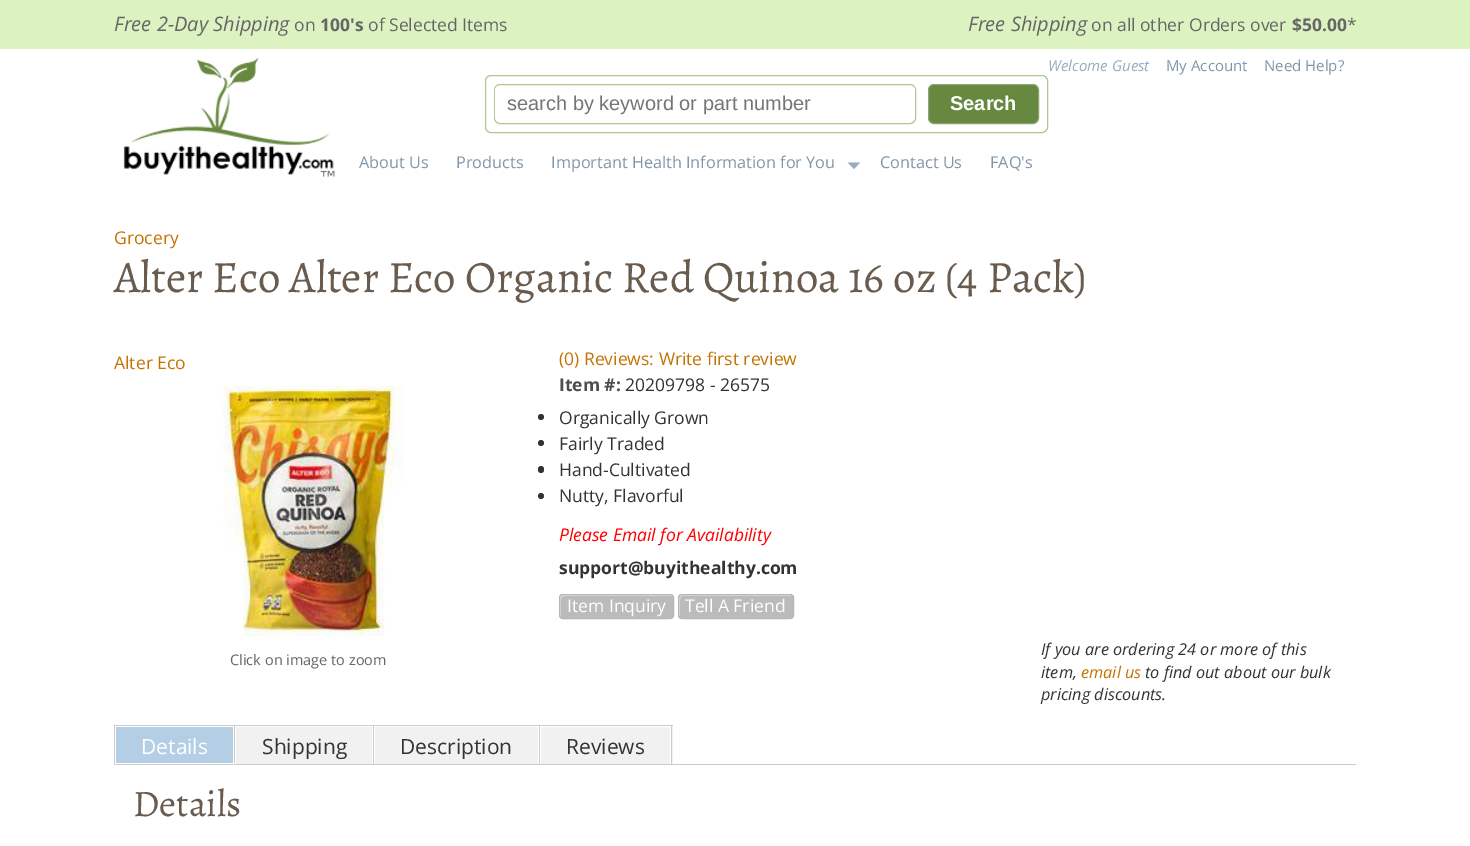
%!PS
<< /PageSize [1470 846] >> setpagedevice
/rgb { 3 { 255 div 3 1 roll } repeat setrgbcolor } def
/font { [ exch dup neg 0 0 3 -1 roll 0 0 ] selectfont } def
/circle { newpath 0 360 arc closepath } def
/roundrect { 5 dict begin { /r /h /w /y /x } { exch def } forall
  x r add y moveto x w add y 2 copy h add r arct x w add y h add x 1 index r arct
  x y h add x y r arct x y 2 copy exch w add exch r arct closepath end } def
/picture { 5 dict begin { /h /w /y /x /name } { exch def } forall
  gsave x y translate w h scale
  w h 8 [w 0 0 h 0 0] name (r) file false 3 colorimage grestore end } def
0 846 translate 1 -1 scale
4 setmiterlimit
255 255 255 rgb
0 0 1470 846 rectfill
220 242 193 rgb
0 0 1470 49 rectfill
175 202 144 rgb
485.5 75.5 562 57 5.5 roundrect stroke
494.5 84.5 421 39 5.5 roundrect stroke
255 255 255 rgb
495 86 420 35 4 roundrect fill
102 136 63 rgb
928.5 84.5 110 39 5.5 roundrect gsave fill grestore
142 164 116 rgb
stroke
(img/1.rgb) 123 58 212 119 picture
150 173 193 rgb
847.5 162.5 moveto 860 162.5 lineto 854 169 lineto closepath fill
(img/2.rgb) 222 386 182 251 picture
51 51 51 rgb
541 417 3 circle fill
541 443 3 circle fill
538 466 6 7 3 roundrect fill
541 496 3 circle fill
187 187 187 rgb
559 594 115 25 4 roundrect fill
221 221 221 rgb
564 596 moveto 673 596 lineto 672 596 671 595 670 595 curveto 562 595 lineto 561 595 560 596 560 598 curveto 560 616 lineto 560 616 561 617 561 618 curveto 561 608 lineto 561 604 559 596 564 596 curveto closepath fill
182 182 182 rgb
559.5 594.5 114 24 3.5 roundrect stroke
187 187 187 rgb
678 594 116 25 4 roundrect fill
221 221 221 rgb
682 596 moveto 793 596 lineto 792 596 791 595 790 595 curveto 682 595 lineto 680 595 679 596 679 598 curveto 679 616 lineto 679 616 680 617 680 618 curveto 680 608 lineto 680 606 679 596 682 596 curveto closepath fill
182 182 182 rgb
678.5 594.5 115 24 3.5 roundrect stroke
[
  [114 764 1242 1 204 204 204]
  [114 725 1 40 204 204 204]
  [116 727 117 36 180 206 229]
  [115 725 558 1 204 204 204]
  [234 725 1 39 204 204 204]
  [234 763 1 1 255 255 255]
  [236 727 136 37 241 241 241]
  [373 725 1 39 204 204 204]
  [375 727 163 37 241 241 241]
  [539 725 1 39 204 204 204]
  [541 726 132 38 241 241 241]
  [671 725 1 39 204 204 204]
] { aload pop rgb rectfill } forall
gsave
540 726 131 38 rectclip
255 255 255 rgb
540.5 726.5 130 41 rectstroke
grestore
/OpenSans-Italic 20 font
102 102 102 rgb
114 31 moveto (Free 2-Day Shipping) show
/OpenSans-Regular 17.5 font
294 31 moveto (on) show
/OpenSans-Bold 17.5 font
320 31 moveto (100's) show
/OpenSans-Regular 17.5 font
368 31 moveto (of Selected Items) show
/OpenSans-Italic 20 font
968 31 moveto (Free Shipping) show
/OpenSans-Regular 17.5 font
1091 31 moveto (on all other Orders over) show
/OpenSans-Bold 17.5 font
1292 31 moveto ($50.00) show
/OpenSans-Regular 17.5 font
1347 31 moveto (*) show
/OpenSans-Italic 15 font
150 173 193 rgb
1048 71 moveto (Welcome Guest) show
/OpenSans-Regular 15 font
128 150 169 rgb
1166 71 moveto (My Account) show
1264 71 moveto (Need Help?) show
/LiberationSans-Regular 20 font
117 117 117 rgb
507 110 moveto (search by keyword or part number) show
/LiberationSans-Bold 20 font
255 255 255 rgb
950 110 moveto (Search) show
/OpenSans-Regular 16.25 font
128 150 169 rgb
[
  [(About Us) 359 168]
  [(Products) 456 168]
  [(Important Health Information for You) 551 168]
  [(Contact Us) 880 168]
  [(FAQ's) 990 168]
] { aload pop moveto show } forall
/OpenSans-Regular 17.5 font
197 114 0 rgb
114 244 moveto (Grocery) show
/Alegreya-Regular 45 font
105 91 78 rgb
114 292 moveto (Alter Eco Alter Eco Organic Red Quinoa 16 oz \(4 Pack\)) show
/OpenSans-Regular 17.5 font
197 114 0 rgb
114 369 moveto (Alter Eco) show
/OpenSans-Regular 14.5 font
102 102 102 rgb
230 665 moveto (Click on image to zoom) show
/OpenSans-Regular 17.5 font
197 114 0 rgb
559 365 moveto (\(0\) Reviews: Write first review) show
/OpenSans-Bold 17.5 font
77 77 77 rgb
559 391 moveto (Item #:) show
/OpenSans-Regular 17.5 font
51 51 51 rgb
[
  [(20209798 - 26575) 625 391]
  [(Organically Grown) 559 424]
  [(Fairly Traded) 559 450]
  [(Hand-Cultivated) 559 476]
  [(Nutty, Flavorful) 559 502]
] { aload pop moveto show } forall
/OpenSans-Italic 17.5 font
255 0 0 rgb
559 541 moveto (Please Email for Availability) show
/OpenSans-Bold 17.5 font
51 51 51 rgb
559 574 moveto (support@buyithealthy.com) show
/OpenSans-Regular 17.5 font
255 255 255 rgb
567 612 moveto (Item Inquiry) show
685 612 moveto (Tell A Friend) show
/OpenSans-Italic 16.25 font
51 51 51 rgb
1041 655 moveto (If you are ordering 24 or more of this) show
1041 678 moveto (item,) show
197 114 0 rgb
1081 678 moveto (email us) show
51 51 51 rgb
1145 678 moveto (to find out about our bulk) show
1041 700 moveto (pricing discounts.) show
/OpenSans-Regular 21 font
255 255 255 rgb
141 754 moveto (Details) show
51 51 51 rgb
[
  [(Shipping) 262 754]
  [(Description) 400 754]
  [(Reviews) 566 754]
] { aload pop moveto show } forall
/Alegreya-Regular 37.5 font
105 91 78 rgb
133 816 moveto (Details) show
showpage
